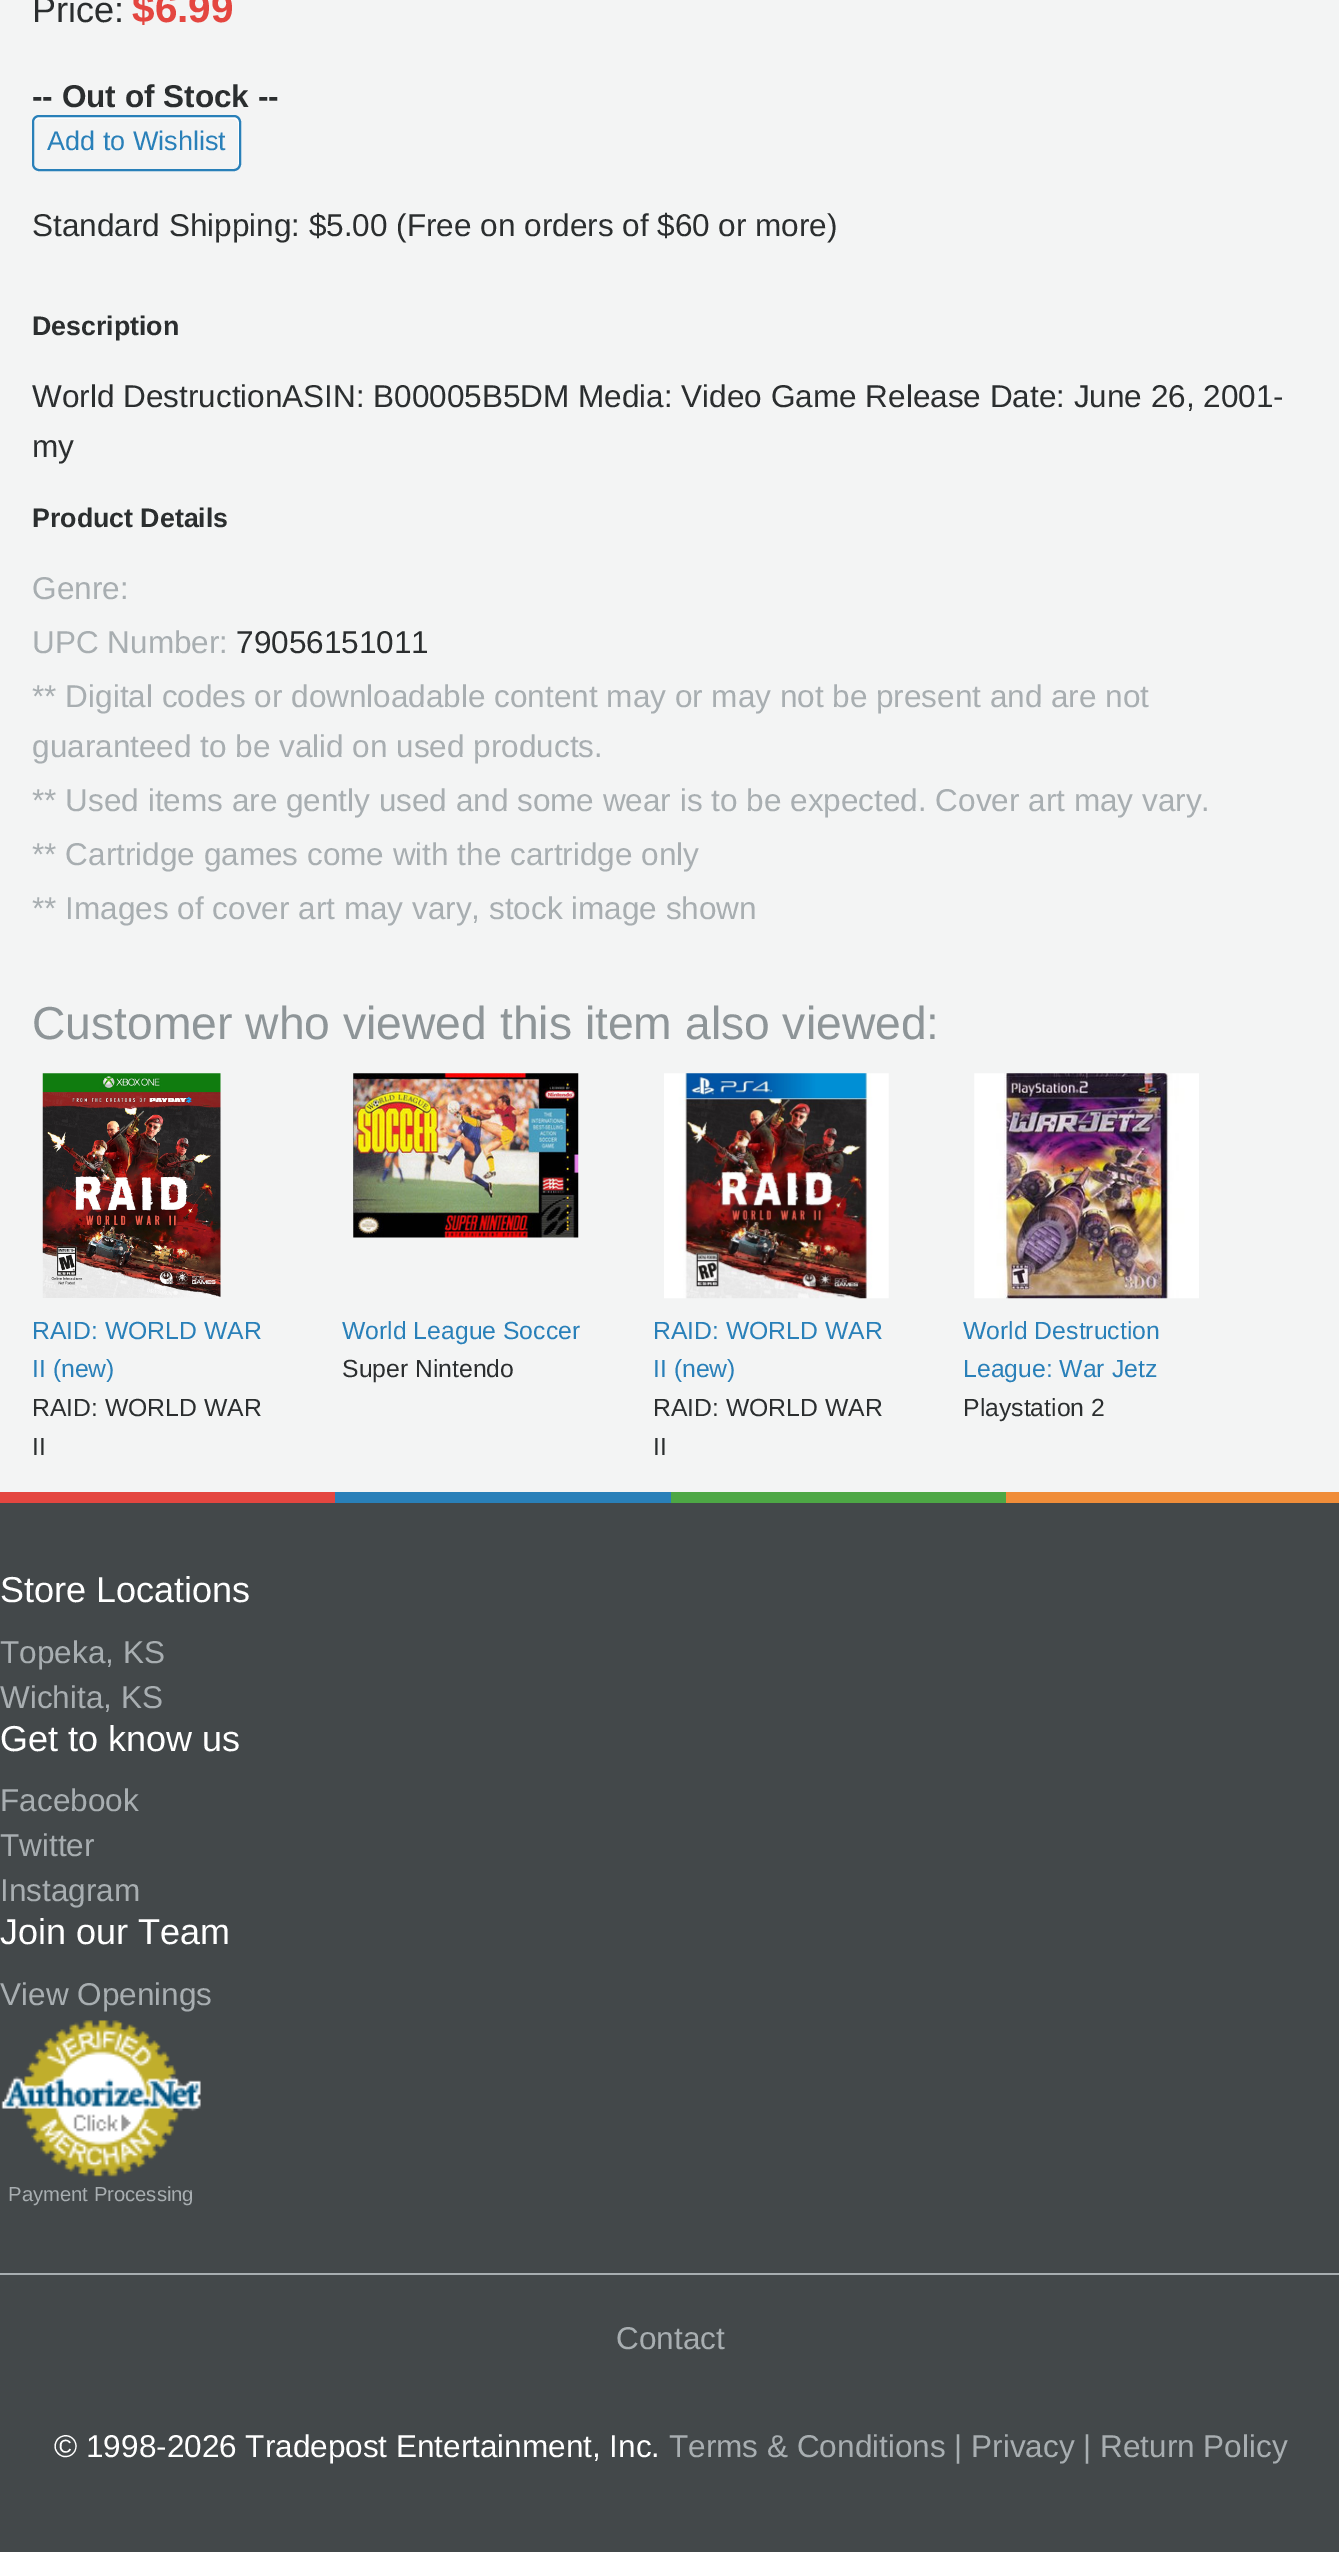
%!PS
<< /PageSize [1339 2552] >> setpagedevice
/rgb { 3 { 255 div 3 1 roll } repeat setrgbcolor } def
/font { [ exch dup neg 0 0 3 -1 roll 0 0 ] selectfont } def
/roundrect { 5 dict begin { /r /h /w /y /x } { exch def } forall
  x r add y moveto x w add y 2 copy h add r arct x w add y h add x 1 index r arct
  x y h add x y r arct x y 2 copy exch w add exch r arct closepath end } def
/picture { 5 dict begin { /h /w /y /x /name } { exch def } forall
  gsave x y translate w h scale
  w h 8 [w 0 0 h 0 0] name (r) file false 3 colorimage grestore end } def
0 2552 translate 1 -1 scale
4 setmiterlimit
243 244 244 rgb
0 0 1339 2552 rectfill
254 254 254 rgb
38 119 moveto 234 119 lineto 236 119 238 121 238 124 curveto 238 167 lineto 239 166 239 165 239 164 curveto 239 122 lineto 239 119 237 117 234 117 curveto 39 117 lineto 36 117 34 119 34 122 curveto 34 124 lineto 34 121 36 119 38 119 curveto closepath fill
41 128 185 rgb
2 setlinewidth
33 116 207 54 6 roundrect stroke
(img/1.rgb) 42 1073 179 225 picture
(img/2.rgb) 353 1073 226 165 picture
(img/3.rgb) 664 1073 225 226 picture
(img/4.rgb) 974 1073 225 226 picture
[
  [0 1503 1339 1049 67 72 74]
  [0 1492 335 11 228 70 64]
  [335 1492 336 11 41 128 185]
  [671 1492 335 11 77 167 69]
  [1006 1492 333 11 240 141 57]
] { aload pop rgb rectfill } forall
(img/5.rgb) 1 2020 200 157 picture
168 174 177 rgb
0 2273 1339 2 rectfill
/LiberationSans-Regular 36 font
43 46 47 rgb
32 22 moveto (Price:) show
/LiberationSans-Bold 40.5 font
228 70 64 rgb
132 22 moveto ($6.99) show
/LiberationSans-Bold 31.5 font
43 46 47 rgb
32 107 moveto (-- Out of Stock --) show
/LiberationSans-Regular 27 font
41 128 185 rgb
47 150 moveto (Add to Wishlist) show
/LiberationSans-Regular 31.5 font
43 46 47 rgb
32 236 moveto (Standard Shipping: $5.00 \(Free on orders of $60 or more\)) show
/LiberationSans-Bold 26.75 font
32 335 moveto (Description) show
/LiberationSans-Regular 31.5 font
32 407 moveto (World DestructionASIN: B00005B5DM Media: Video Game Release Date: June 26, 2001-) show
32 457 moveto (my) show
/LiberationSans-Bold 26.75 font
32 527 moveto (Product Details) show
/LiberationSans-Regular 31.5 font
168 174 177 rgb
32 599 moveto (Genre:) show
32 653 moveto (UPC Number:) show
43 46 47 rgb
236 653 moveto (79056151011) show
168 174 177 rgb
[
  [(** Digital codes or downloadable content may or may not be present and are not) 32 707]
  [(guaranteed to be valid on used products.) 32 757]
  [(** Used items are gently used and some wear is to be expected. Cover art may vary.) 32 811]
  [(** Cartridge games come with the cartridge only) 32 865]
  [(** Images of cover art may vary, stock image shown) 32 919]
] { aload pop moveto show } forall
/LiberationSans-Regular 46.25 font
142 149 152 rgb
32 1039 moveto (Customer who viewed this item also viewed:) show
/LiberationSans-Regular 24.75 font
41 128 185 rgb
32 1339 moveto (RAID: WORLD WAR) show
32 1377 moveto (II \(new\)) show
43 46 47 rgb
32 1416 moveto (RAID: WORLD WAR) show
32 1455 moveto (II) show
41 128 185 rgb
342 1339 moveto (World League Soccer) show
43 46 47 rgb
342 1377 moveto (Super Nintendo) show
41 128 185 rgb
653 1339 moveto (RAID: WORLD WAR) show
653 1377 moveto (II \(new\)) show
43 46 47 rgb
653 1416 moveto (RAID: WORLD WAR) show
653 1455 moveto (II) show
41 128 185 rgb
963 1339 moveto (World Destruction) show
963 1377 moveto (League: War Jetz) show
43 46 47 rgb
963 1416 moveto (Playstation 2) show
/LiberationSans-Regular 36 font
255 255 255 rgb
0 1602 moveto (Store Locations) show
/LiberationSans-Regular 31.5 font
168 174 177 rgb
0 1663 moveto (Topeka, KS) show
0 1708 moveto (Wichita, KS) show
/LiberationSans-Regular 36 font
255 255 255 rgb
0 1751 moveto (Get to know us) show
/LiberationSans-Regular 31.5 font
168 174 177 rgb
[
  [(Facebook) 0 1811]
  [(Twitter) 0 1856]
  [(Instagram) 0 1901]
] { aload pop moveto show } forall
/LiberationSans-Regular 36 font
255 255 255 rgb
0 1944 moveto (Join our Team) show
/LiberationSans-Regular 31.5 font
168 174 177 rgb
0 2005 moveto (View Openings) show
/LiberationSans-Regular 20.25 font
8 2201 moveto (Payment Processing) show
/LiberationSans-Regular 31.5 font
616 2349 moveto (Contact) show
255 255 255 rgb
54 2457 moveto (© 1998-2026 Tradepost Entertainment, Inc.) show
168 174 177 rgb
669 2457 moveto (Terms & Conditions | Privacy | Return Policy) show
showpage
